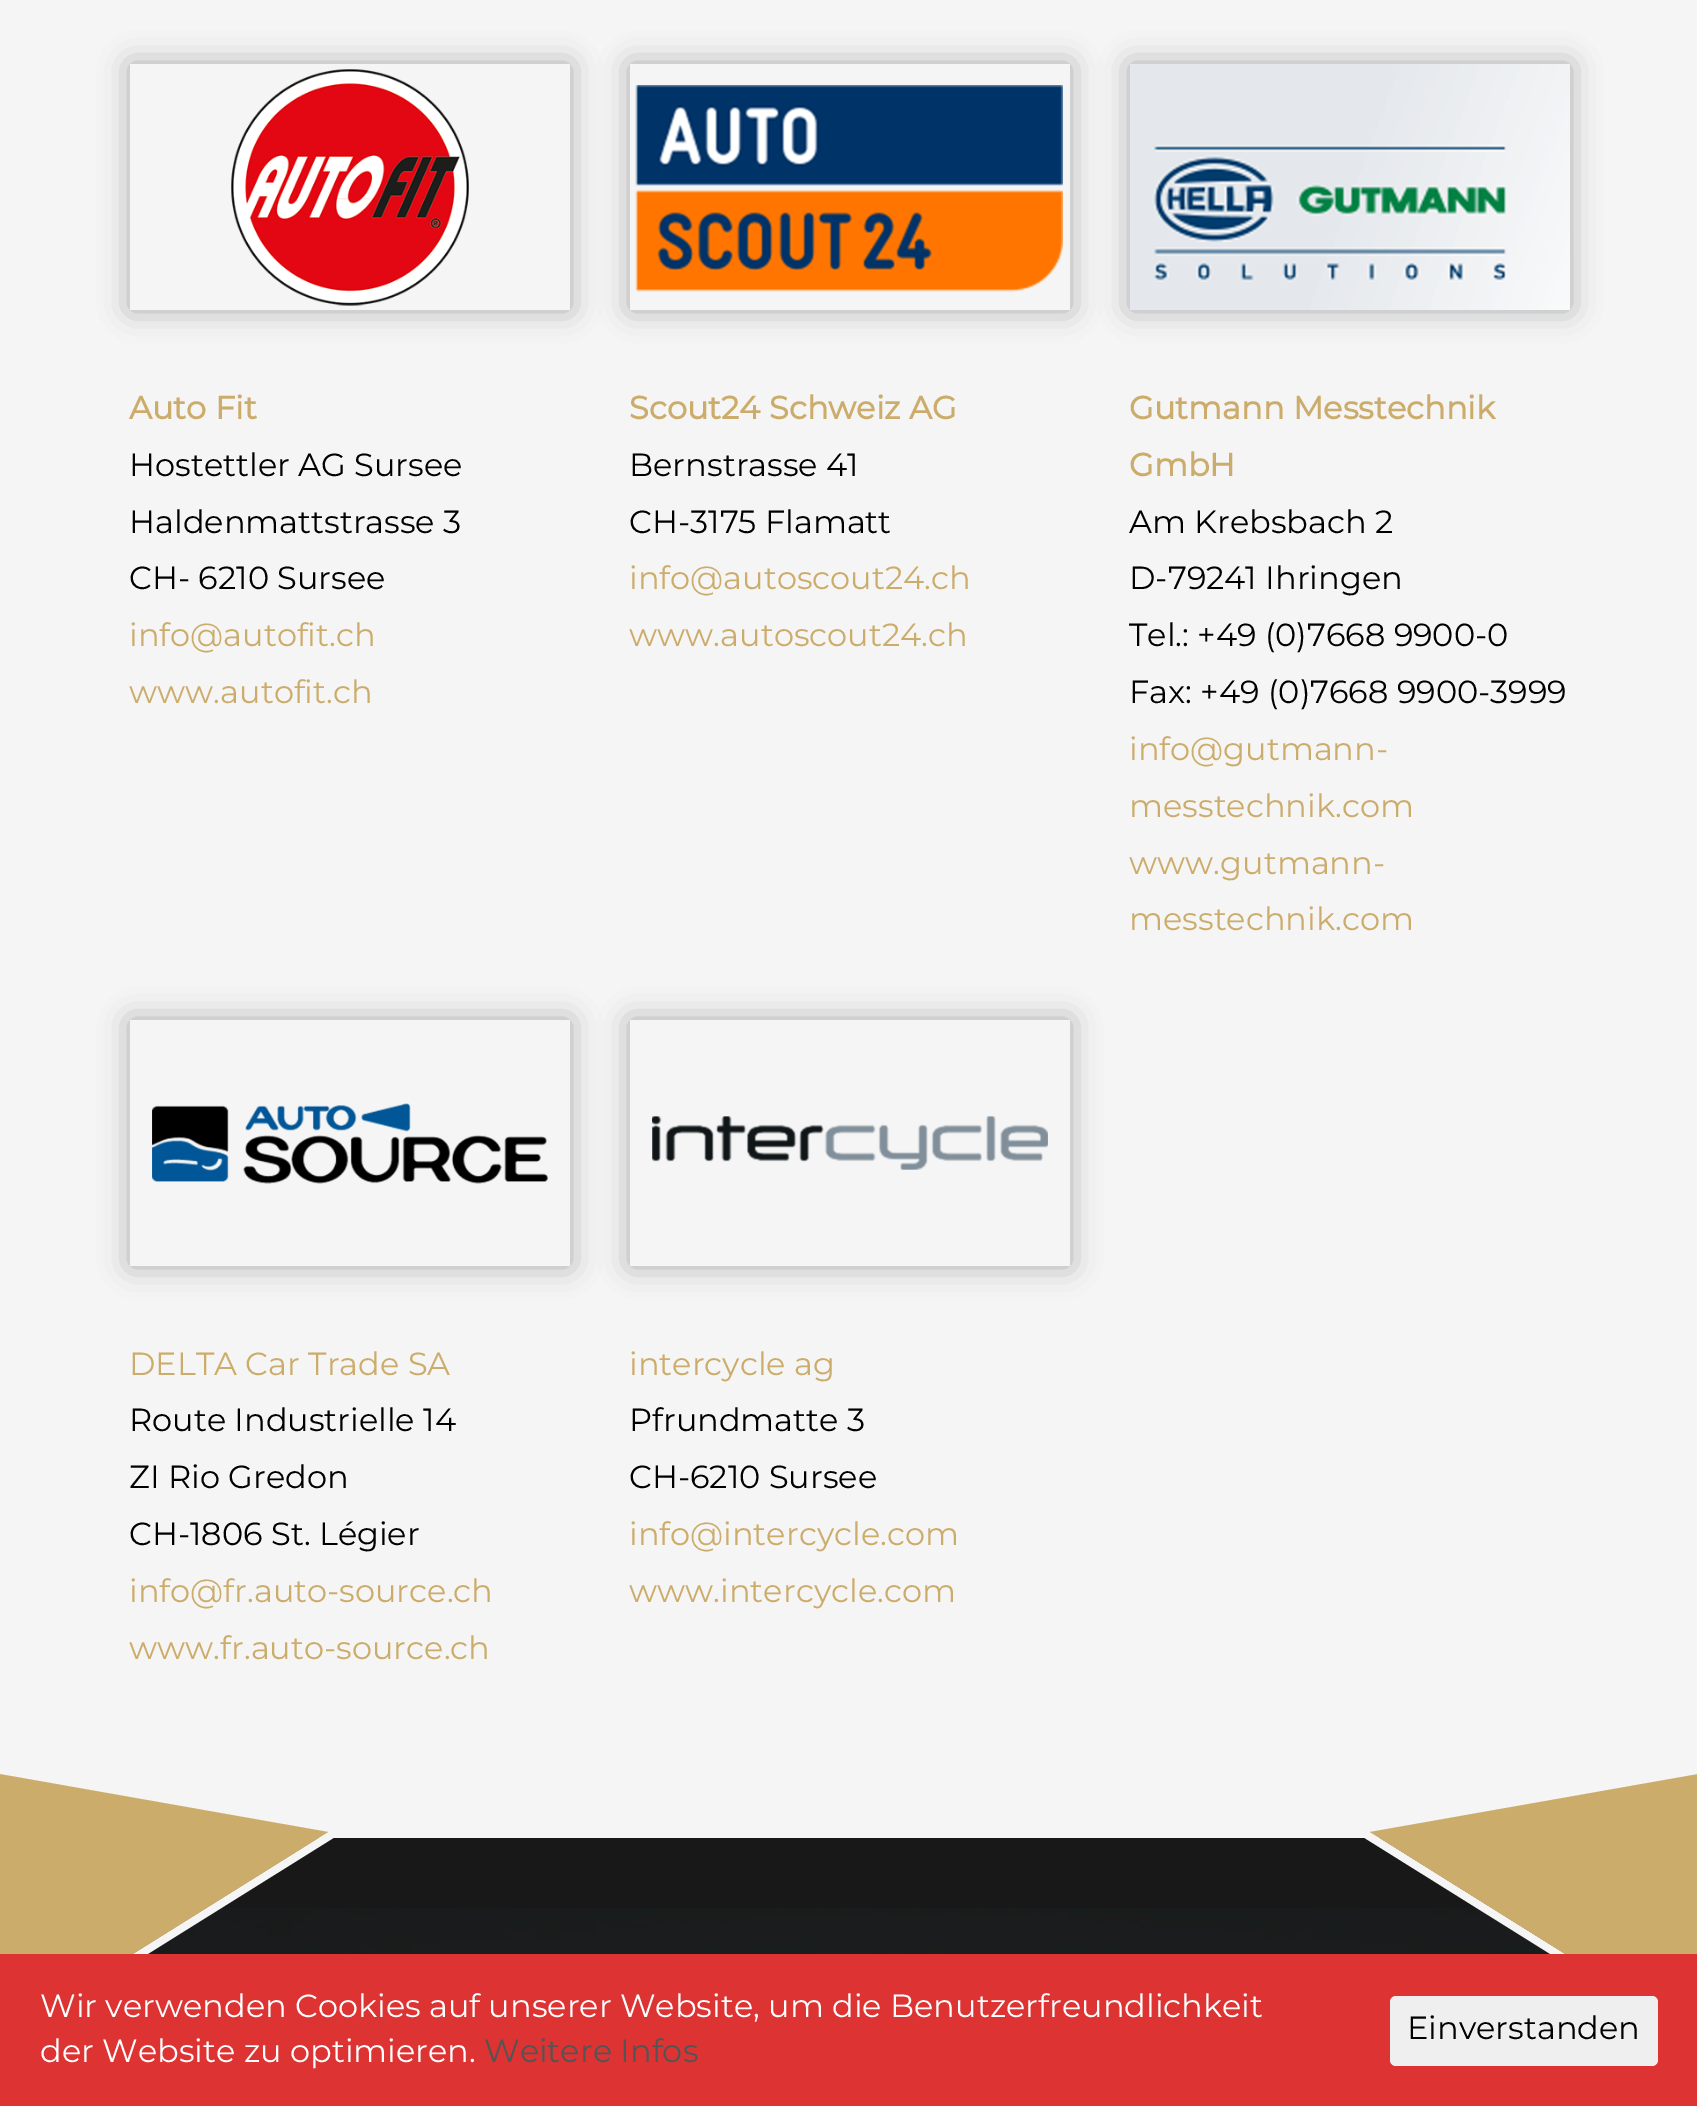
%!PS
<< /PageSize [1697 2106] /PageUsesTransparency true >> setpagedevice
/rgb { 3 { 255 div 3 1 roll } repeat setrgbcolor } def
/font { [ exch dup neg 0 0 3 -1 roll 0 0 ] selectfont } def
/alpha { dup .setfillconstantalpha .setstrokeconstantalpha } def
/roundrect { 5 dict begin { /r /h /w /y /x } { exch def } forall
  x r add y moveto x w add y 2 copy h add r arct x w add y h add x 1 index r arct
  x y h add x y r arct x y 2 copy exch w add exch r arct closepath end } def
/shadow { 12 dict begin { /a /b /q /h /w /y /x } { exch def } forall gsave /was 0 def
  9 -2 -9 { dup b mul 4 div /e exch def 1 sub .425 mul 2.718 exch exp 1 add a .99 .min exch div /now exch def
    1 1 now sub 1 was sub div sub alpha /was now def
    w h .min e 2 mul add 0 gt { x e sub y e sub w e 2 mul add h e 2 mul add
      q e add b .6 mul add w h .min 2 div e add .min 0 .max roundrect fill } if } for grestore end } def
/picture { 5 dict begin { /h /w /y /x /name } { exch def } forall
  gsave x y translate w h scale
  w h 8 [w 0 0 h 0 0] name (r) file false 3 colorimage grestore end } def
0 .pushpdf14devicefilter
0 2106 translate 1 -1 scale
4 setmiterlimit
245 245 245 rgb
0 0 1697 2106 rectfill
gsave
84 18 moveto 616 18 lineto 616 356 lineto 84 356 lineto closepath 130 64 moveto 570 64 lineto 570 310 lineto 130 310 lineto closepath eoclip newpath
0 0 0 rgb
130 64 440 246 0 15 0.3 shadow
grestore
(img/1.rgb) 231 69 238 237 picture
gsave
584 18 moveto 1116 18 lineto 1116 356 lineto 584 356 lineto closepath 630 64 moveto 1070 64 lineto 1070 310 lineto 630 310 lineto closepath eoclip newpath
0 0 0 rgb
630 64 440 246 0 15 0.3 shadow
grestore
(img/2.rgb) 635 85 428 207 picture
0 0 0 rgb
1130 64 440 246 0 15 0.3 shadow
(img/3.rgb) 1130 64 440 246 picture
gsave
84 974 moveto 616 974 lineto 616 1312 lineto 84 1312 lineto closepath 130 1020 moveto 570 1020 lineto 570 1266 lineto 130 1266 lineto closepath eoclip newpath
130 1020 440 246 0 15 0.3 shadow
grestore
(img/4.rgb) 152 1103 396 81 picture
gsave
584 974 moveto 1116 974 lineto 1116 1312 lineto 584 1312 lineto closepath 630 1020 moveto 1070 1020 lineto 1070 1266 lineto 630 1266 lineto closepath eoclip newpath
630 1020 440 246 0 15 0.3 shadow
grestore
(img/5.rgb) 652 1116 396 54 picture
24 24 24 rgb
132 1838 1434 116 rectfill
(img/6.rgb) 132 1908 1434 46 picture
245 245 245 rgb
-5 1770 moveto -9 1772 lineto 328 1832 lineto 72 1992 lineto -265 1932 lineto -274 1938 lineto 74 2000 lineto 343 1832 lineto closepath fill
204 172 106 rgb
-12 1772 moveto 328 1832 lineto 72 1992 lineto -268 1932 lineto closepath fill
245 245 245 rgb
1355 1832 moveto 1624 2000 lineto 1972 1938 lineto 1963 1932 lineto 1626 1992 lineto 1370 1832 lineto 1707 1772 lineto 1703 1770 lineto closepath fill
204 172 106 rgb
1370 1832 moveto 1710 1772 lineto 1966 1932 lineto 1626 1992 lineto closepath fill
221 51 51 rgb
0 1954 1697 152 rectfill
239 239 239 rgb
1390 1996 268 70 6 roundrect fill
/Montserrat-Bold 32 font
204 172 106 rgb
129 419 moveto (Auto Fit) show
/Montserrat-Thin 32 font
0 0 0 rgb
[
  [(Hostettler AG Sursee) 129 476]
  [(Haldenmattstrasse 3) 129 533]
  [(CH- 6210 Sursee) 129 589]
] { aload pop moveto show } forall
204 172 106 rgb
129 646 moveto (info@autofit.ch) show
129 703 moveto (www.autofit.ch) show
/Montserrat-Bold 32 font
629 419 moveto (Scout24 Schweiz AG) show
/Montserrat-Thin 32 font
0 0 0 rgb
629 476 moveto (Bernstrasse 41) show
629 533 moveto (CH-3175 Flamatt) show
204 172 106 rgb
629 589 moveto (info@autoscout24.ch) show
629 646 moveto (www.autoscout24.ch) show
/Montserrat-Bold 32 font
1129 419 moveto (Gutmann Messtechnik) show
1129 476 moveto (GmbH) show
/Montserrat-Thin 32 font
0 0 0 rgb
[
  [(Am Krebsbach 2) 1129 533]
  [(D-79241 Ihringen) 1129 589]
  [(Tel.: +49 \(0\)7668 9900-0) 1129 646]
  [(Fax: +49 \(0\)7668 9900-3999) 1129 703]
] { aload pop moveto show } forall
204 172 106 rgb
[
  [(info@gutmann-) 1129 760]
  [(messtechnik.com) 1129 817]
  [(www.gutmann-) 1129 874]
  [(messtechnik.com) 1129 930]
  [(DELTA Car Trade SA) 129 1375]
] { aload pop moveto show } forall
0 0 0 rgb
[
  [(Route Industrielle 14) 129 1431]
  [(ZI Rio Gredon) 129 1488]
  [(CH-1806 St. Légier) 129 1545]
] { aload pop moveto show } forall
204 172 106 rgb
[
  [(info@fr.auto-source.ch) 129 1602]
  [(www.fr.auto-source.ch) 129 1659]
  [(intercycle ag) 629 1375]
] { aload pop moveto show } forall
0 0 0 rgb
629 1431 moveto (Pfrundmatte 3) show
629 1488 moveto (CH-6210 Sursee) show
204 172 106 rgb
629 1545 moveto (info@intercycle.com) show
629 1602 moveto (www.intercycle.com) show
255 255 255 rgb
40 2017 moveto (Wir verwenden Cookies auf unserer Website, um die Benutzerfreundlichkeit) show
40 2062 moveto (der Website zu optimieren.) show
84 84 84 rgb
484 2062 moveto (Weitere Infos) show
0 0 0 rgb
1407 2039 moveto (Einverstanden) show
.poppdf14devicefilter showpage
